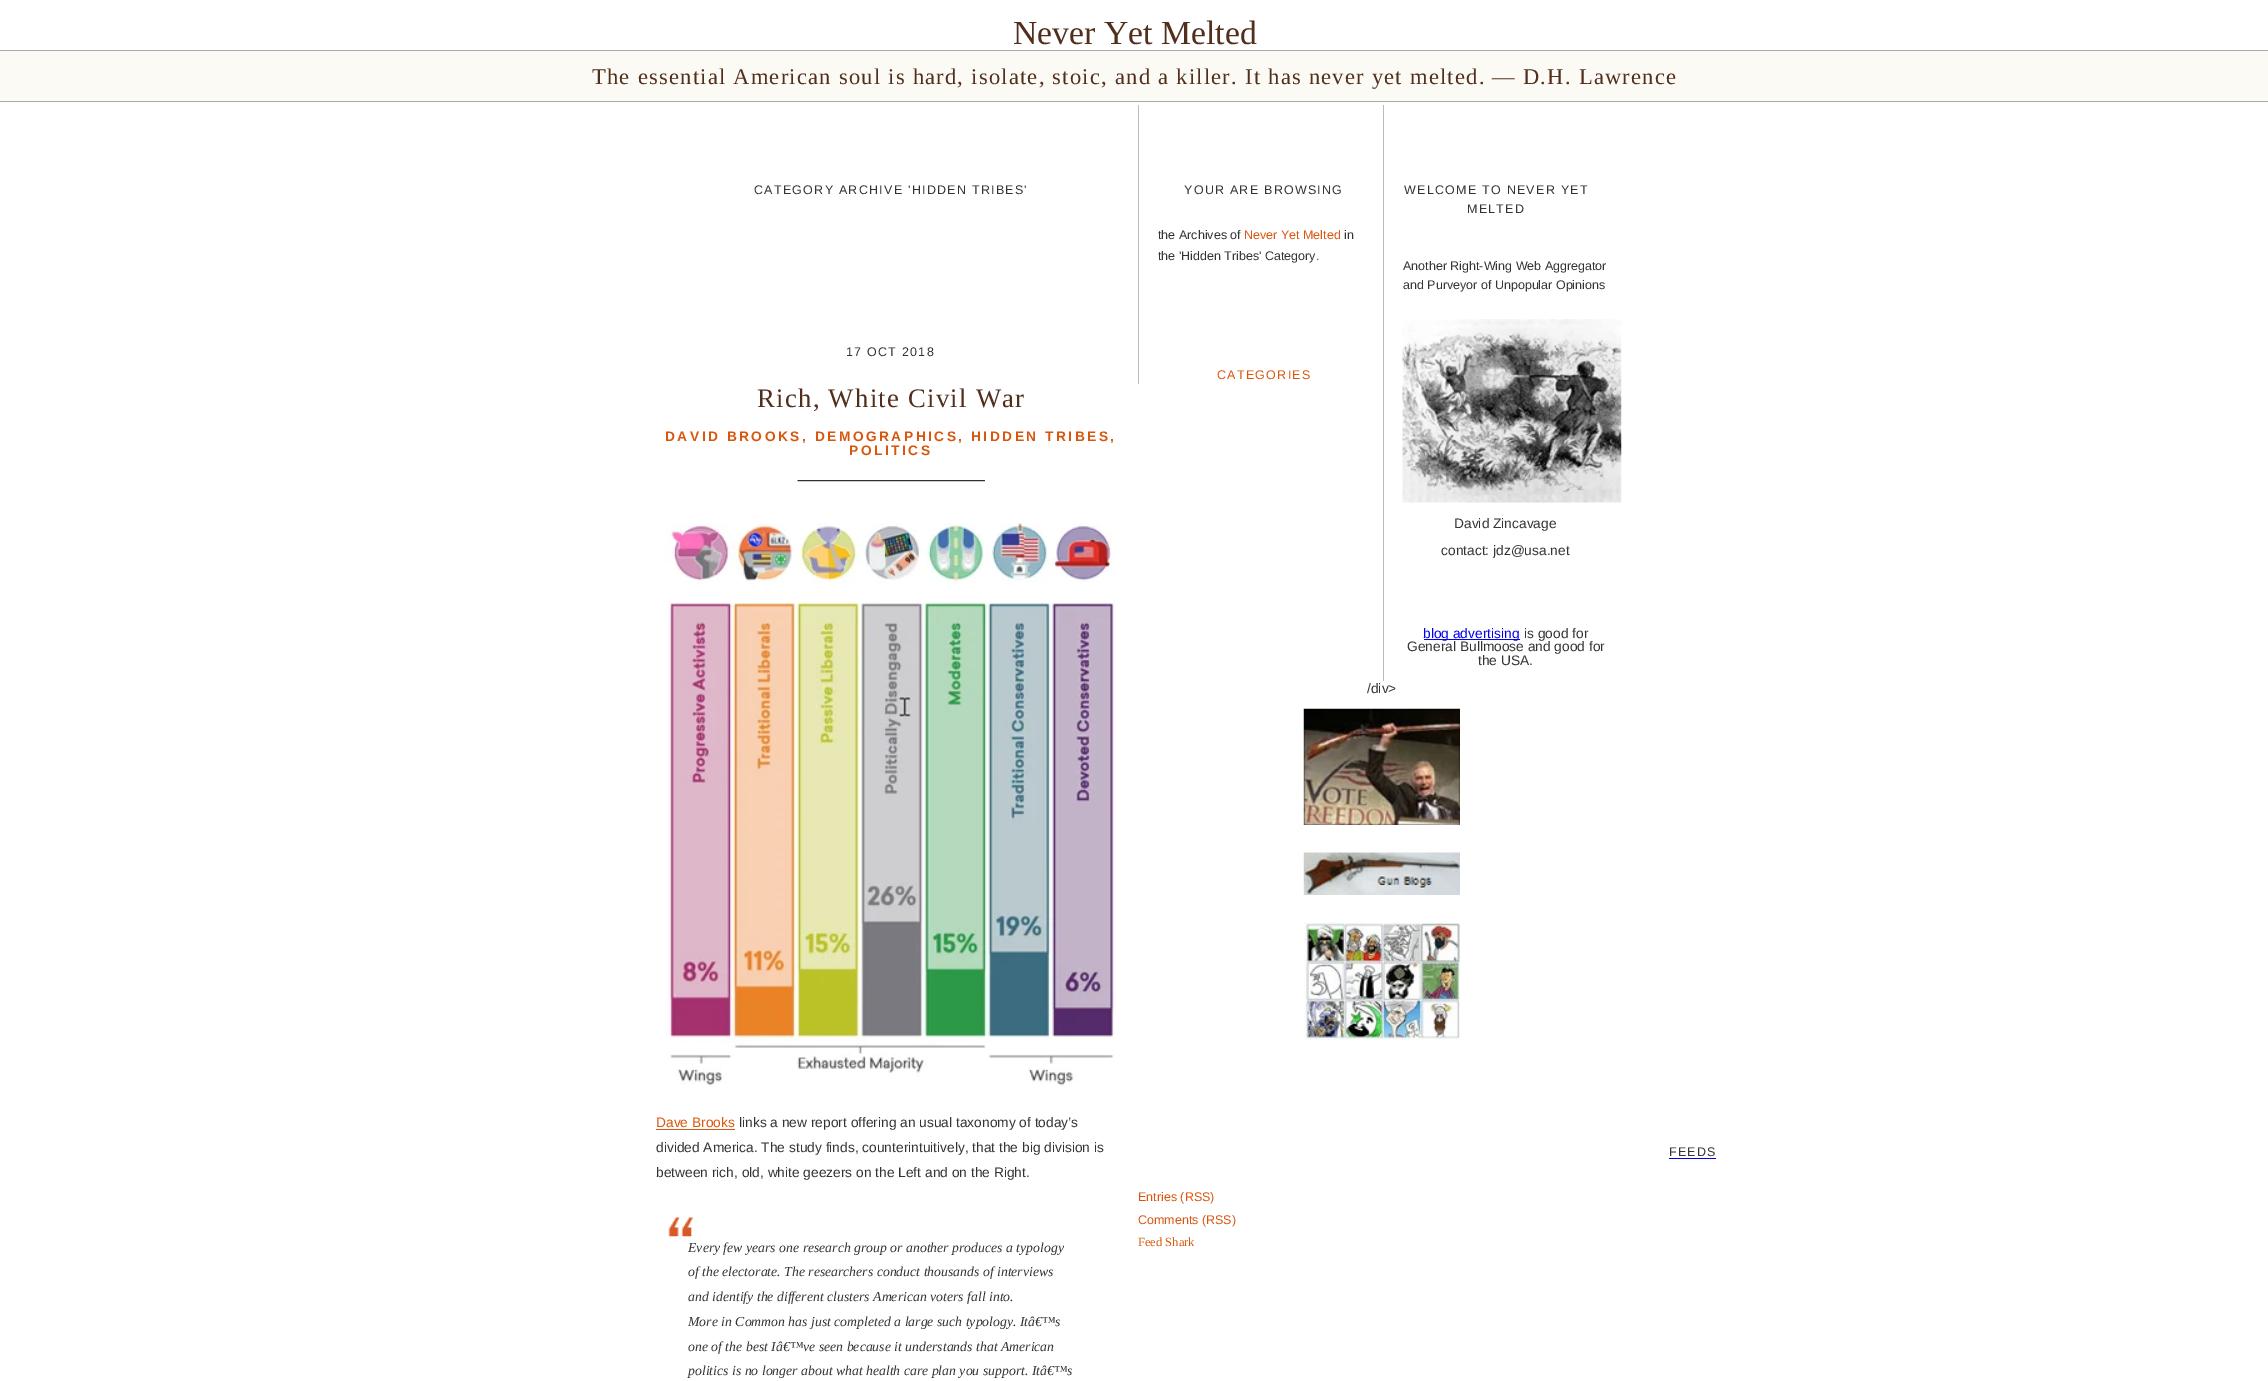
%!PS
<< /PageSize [2268 1381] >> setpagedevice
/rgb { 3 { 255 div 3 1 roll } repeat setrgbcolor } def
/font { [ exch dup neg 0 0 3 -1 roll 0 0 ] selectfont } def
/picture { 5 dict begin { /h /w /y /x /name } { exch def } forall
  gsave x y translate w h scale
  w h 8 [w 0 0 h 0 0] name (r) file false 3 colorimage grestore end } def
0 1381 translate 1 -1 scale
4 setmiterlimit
255 255 255 rgb
0 0 2268 1381 rectfill
[
  [0 51 2268 52 251 250 244]
  [0 50 2268 1 170 170 170]
  [0 101 2268 1 170 170 170]
] { aload pop rgb rectfill } forall
(img/1.rgb) 797 480 188 2 picture
(img/2.rgb) 666 523 450 563 picture
217 86 15 rgb
656 1129 79 1 rectfill
(img/3.rgb) 668 1217 26 20 picture
187 187 187 rgb
1138 105 1 279 rectfill
1383 105 1 576 rectfill
(img/4.rgb) 1402 319 220 184 picture
0 0 238 rgb
1424 639 96 1 rectfill
(img/5.rgb) 1303 708 157 117 picture
(img/6.rgb) 1303 852 157 43 picture
(img/7.rgb) 1304 922 156 118 picture
1669 1158 47 1 rectfill
/LiberationSerif-Regular 33.75 font
82 47 28 rgb
1013 44 moveto (Never Yet Melted) show
/LiberationSerif-Regular 22.5 font
592 84 moveto 1.25 0 (The essential American soul is hard, isolate, stoic, and a killer. It has never yet melted. — D.H. Lawrence) ashow
/LiberationSans-Regular 12.5 font
51 51 51 rgb
754 194 moveto 1.25 0 (CATEGORY ARCHIVE 'HIDDEN TRIBES') ashow
846 356 moveto 1.25 0 (17 OCT 2018) ashow
/LiberationSerif-Regular 26.75 font
82 47 28 rgb
757 407 moveto 1.25 0 (Rich, White Civil War) ashow
/LiberationSans-Bold 13.75 font
217 86 15 rgb
665 441 moveto 2.5 0 (DAVID BROOKS, DEMOGRAPHICS, HIDDEN TRIBES,) ashow
849 455 moveto 2.5 0 (POLITICS) ashow
/LiberationSans-Regular 13.75 font
656 1127 moveto (Dave Brooks) show
51 51 51 rgb
[
  [(links a new report offering an usual taxonomy of today’s) 739 1127]
  [(divided America. The study finds, counterintuitively, that the big division is) 656 1152]
  [(between rich, old, white geezers on the Left and on the Right.) 656 1177]
] { aload pop moveto show } forall
/LiberationSerif-Italic 13.75 font
[
  [(Every few years one research group or another produces a typology) 688 1252]
  [(of the electorate. The researchers conduct thousands of interviews) 688 1276]
  [(and identify the different clusters American voters fall into.) 688 1301]
  [(More in Common has just completed a large such typology. Itâ€™s) 688 1326]
  [(one of the best Iâ€™ve seen because it understands that American) 688 1351]
  [(politics is no longer about what health care plan you support. Itâ€™s) 688 1375]
] { aload pop moveto show } forall
/LiberationSans-Regular 12.5 font
1184 194 moveto 1.25 0 (YOUR ARE BROWSING) ashow
1158 239 moveto (the Archives of) show
217 86 15 rgb
1244 239 moveto (Never Yet Melted) show
51 51 51 rgb
1344 239 moveto (in) show
1158 260 moveto (the 'Hidden Tribes' Category.) show
217 86 15 rgb
1217 379 moveto 1.25 0 (CATEGORIES) ashow
51 51 51 rgb
1404 194 moveto 1.25 0 (WELCOME TO NEVER YET) ashow
1467 213 moveto 1.25 0 (MELTED) ashow
1403 270 moveto (Another Right-Wing Web Aggregator) show
1403 289 moveto (and Purveyor of Unpopular Opinions) show
/LiberationSans-Regular 13.75 font
1454 528 moveto (David Zincavage) show
1441 555 moveto (contact: jdz@usa.net) show
0 0 238 rgb
1423 638 moveto (blog advertising) show
51 51 51 rgb
[
  [(is good for) 1524 638]
  [(General Bullmoose and good for) 1407 651]
  [(the USA.) 1478 665]
  [(/div>) 1367 693]
] { aload pop moveto show } forall
/LiberationSans-Regular 12.5 font
1669 1156 moveto 1.25 0 (FEEDS) ashow
217 86 15 rgb
1138 1201 moveto (Entries \(RSS\)) show
1138 1224 moveto (Comments \(RSS\)) show
/LiberationSerif-Regular 12.5 font
1138 1246 moveto (Feed Shark) show
showpage
